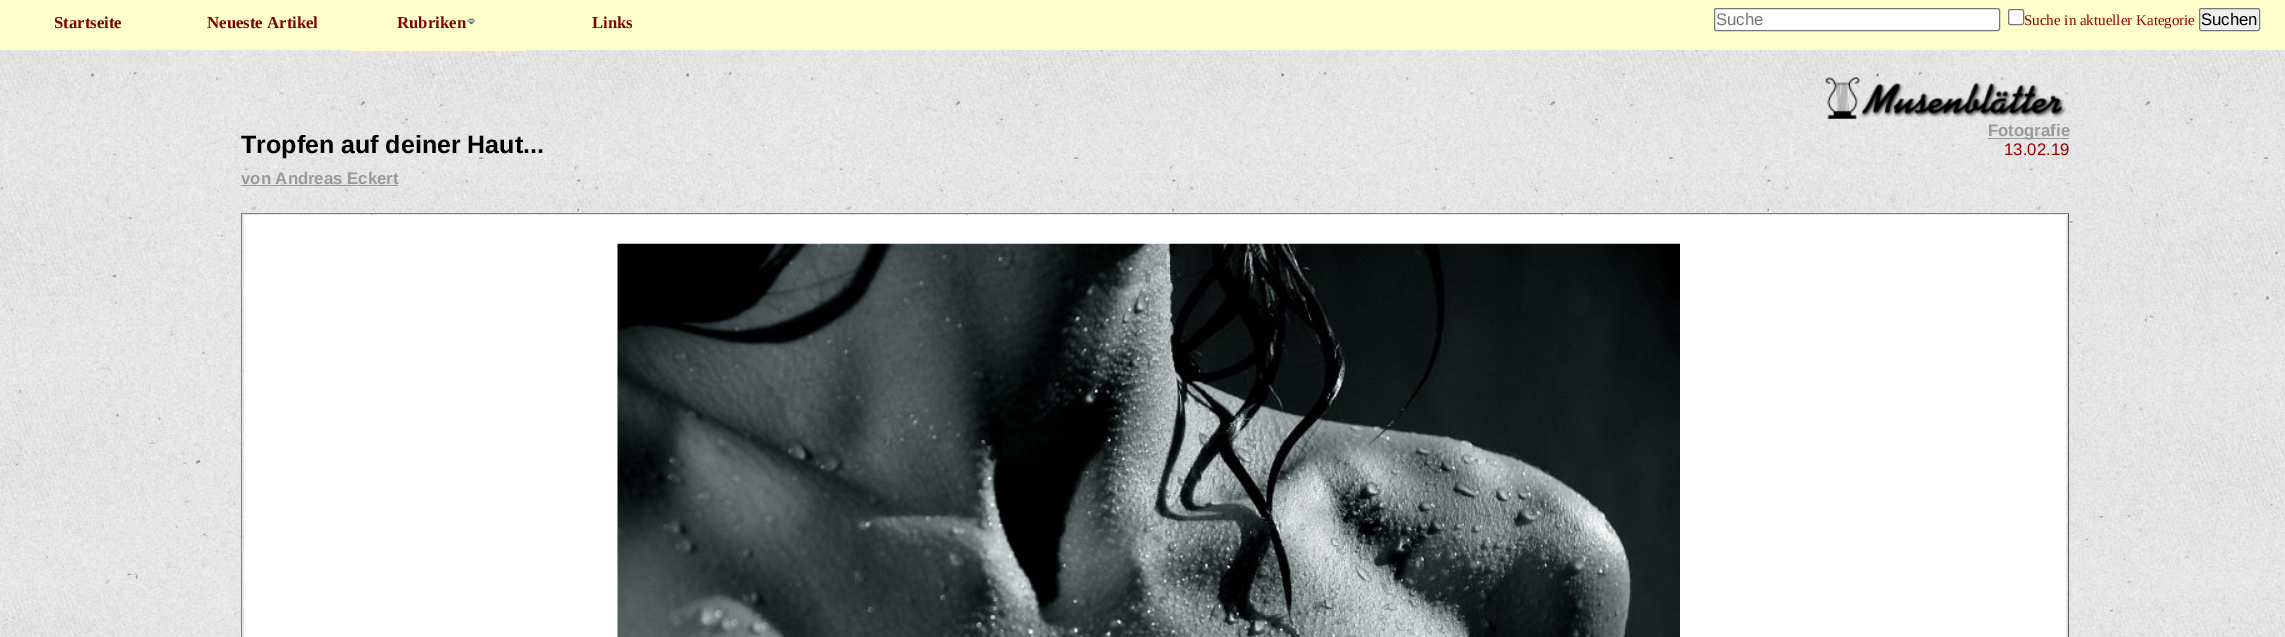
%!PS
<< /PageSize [2285 637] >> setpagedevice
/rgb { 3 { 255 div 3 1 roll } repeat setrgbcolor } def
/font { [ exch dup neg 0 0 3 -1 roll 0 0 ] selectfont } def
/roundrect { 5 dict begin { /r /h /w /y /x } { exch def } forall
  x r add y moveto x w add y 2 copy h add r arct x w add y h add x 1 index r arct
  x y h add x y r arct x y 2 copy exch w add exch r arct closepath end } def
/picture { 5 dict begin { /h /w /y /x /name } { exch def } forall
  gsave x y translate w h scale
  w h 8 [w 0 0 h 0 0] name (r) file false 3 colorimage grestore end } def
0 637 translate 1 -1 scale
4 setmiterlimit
255 255 255 rgb
0 0 2285 637 rectfill
(img/1.rgb) 0 50 2285 587 picture
255 255 204 rgb
0 0 2285 50 rectfill
(img/2.rgb) 467 18 9 6 picture
350 50 175 1 rectfill
255 255 255 rgb
1714.5 8.5 285 22 2 roundrect gsave fill grestore
118 118 118 rgb
stroke
255 255 255 rgb
2008.5 9.5 15 15 2 roundrect gsave fill grestore
118 118 118 rgb
stroke
239 239 239 rgb
2199.5 8.5 60 22 2 roundrect gsave fill grestore
118 118 118 rgb
stroke
153 153 153 rgb
241 185 157 1 rectfill
(img/3.rgb) 1825 77 242 42 picture
[
  [1988 138 81 1 153 153 153]
  [241 213 1828 1 128 128 128]
  [2068 213 1 424 85 85 85]
  [241 213 1 424 128 128 128]
  [244 215 1822 422 255 255 255]
] { aload pop rgb rectfill } forall
(img/4.rgb) 617 243 1063 394 picture
/LiberationSerif-Bold 16.75 font
128 0 0 rgb
[
  [(Startseite) 54 28]
  [(Neueste Artikel) 207 28]
  [(Rubriken) 397 28]
  [(Links) 592 28]
] { aload pop moveto show } forall
/LiberationSans-Regular 16.75 font
117 117 117 rgb
1716 25 moveto (Suche) show
/LiberationSerif-Regular 15 font
153 0 0 rgb
2024 25 moveto (Suche in aktueller Kategorie) show
/LiberationSans-Regular 16.75 font
0 0 0 rgb
2201 25 moveto (Suchen) show
/LiberationSans-Bold 25 font
241 153 moveto (Tropfen auf deiner Haut...) show
/LiberationSans-Bold 16.75 font
153 153 153 rgb
241 184 moveto (von Andreas Eckert) show
1988 136 moveto (Fotografie) show
/LiberationSans-Regular 16.75 font
153 0 0 rgb
2004 155 moveto (13.02.19) show
showpage
